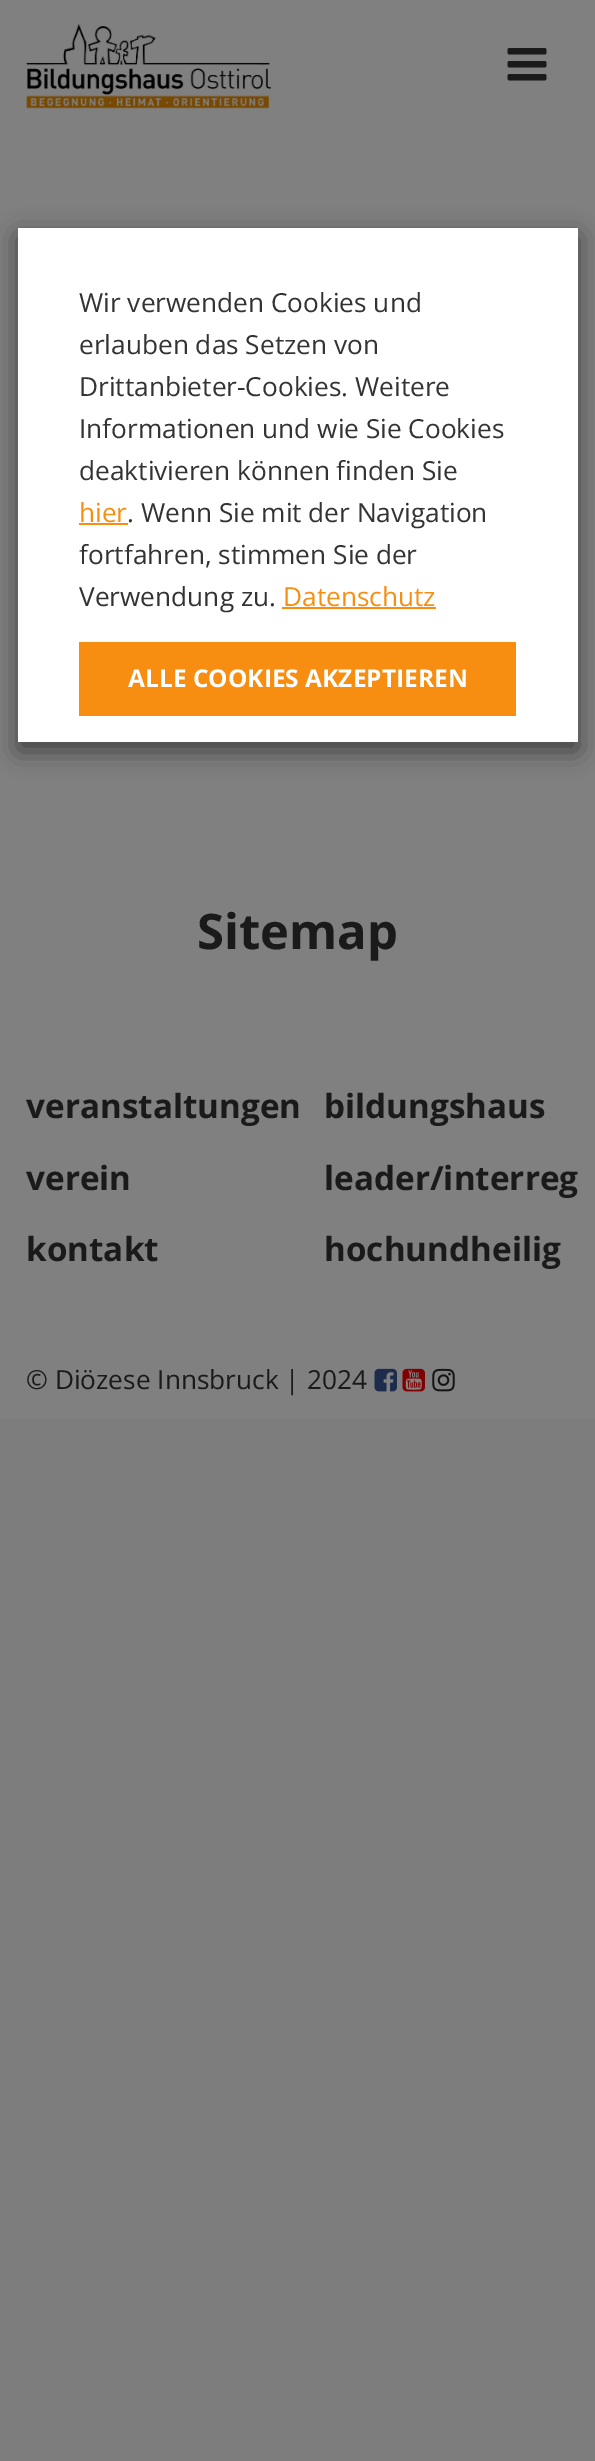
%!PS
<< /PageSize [595 2461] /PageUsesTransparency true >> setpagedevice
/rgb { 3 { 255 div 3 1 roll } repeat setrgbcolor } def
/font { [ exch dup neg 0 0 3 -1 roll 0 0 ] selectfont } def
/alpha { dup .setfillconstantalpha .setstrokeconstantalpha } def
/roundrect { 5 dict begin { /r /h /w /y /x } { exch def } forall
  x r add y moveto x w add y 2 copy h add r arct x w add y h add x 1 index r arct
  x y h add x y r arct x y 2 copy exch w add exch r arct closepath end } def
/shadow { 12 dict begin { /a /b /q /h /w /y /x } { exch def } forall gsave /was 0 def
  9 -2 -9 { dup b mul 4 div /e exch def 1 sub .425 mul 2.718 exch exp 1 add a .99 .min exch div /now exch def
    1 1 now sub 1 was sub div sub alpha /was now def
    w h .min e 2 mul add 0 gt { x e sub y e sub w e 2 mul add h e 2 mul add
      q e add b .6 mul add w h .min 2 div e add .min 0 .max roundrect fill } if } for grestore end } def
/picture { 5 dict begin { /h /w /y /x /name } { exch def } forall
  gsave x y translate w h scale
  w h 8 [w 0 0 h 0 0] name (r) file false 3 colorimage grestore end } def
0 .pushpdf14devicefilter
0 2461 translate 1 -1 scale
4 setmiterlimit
125 125 125 rgb
0 0 595 2461 rectfill
128 128 128 rgb
0 0 595 1419 rectfill
0 0 0 rgb
18 236 560 515 0 13 0.5 shadow
[
  [18 228 560 514 255 255 255]
  [79 523 49 2 247 142 17]
  [282 607 154 2 247 142 17]
  [79 642 437 74 247 142 17]
] { aload pop rgb rectfill } forall
(img/1.rgb) 26 23 246 86 picture
(img/2.rgb) 507 48 40 33 picture
(img/3.rgb) 374 1368 23 24 picture
(img/4.rgb) 402 1368 23 24 picture
(img/5.rgb) 432 1368 23 24 picture
/OpenSans-Regular 26.25 font
51 51 51 rgb
[
  [(Wir verwenden Cookies und) 79 312]
  [(erlauben das Setzen von) 79 354]
  [(Drittanbieter-Cookies. Weitere) 79 396]
  [(Informationen und wie Sie Cookies) 79 438]
  [(deaktivieren können finden Sie) 79 480]
] { aload pop moveto show } forall
247 142 17 rgb
79 522 moveto (hier) show
51 51 51 rgb
[
  [(. Wenn Sie mit der Navigation) 127 522]
  [(fortfahren, stimmen Sie der) 79 564]
  [(Verwendung zu.) 79 606]
] { aload pop moveto show } forall
247 142 17 rgb
283 606 moveto (Datenschutz) show
/OpenSans-Bold 24.5 font
255 255 255 rgb
128 687 moveto (ALLE COOKIES AKZEPTIEREN) show
/OpenSans-Bold 49 font
26 26 26 rgb
197 949 moveto (Sitemap) show
/OpenSans-Bold 33.25 font
[
  [(veranstaltungen) 26 1118]
  [(bildungshaus) 324 1118]
  [(verein) 26 1190]
  [(leader/interreg) 324 1190]
  [(kontakt) 26 1261]
  [(hochundheilig) 324 1261]
] { aload pop moveto show } forall
/OpenSans-Regular 26.25 font
26 1389 moveto (© Diözese Innsbruck | 2024) show
.poppdf14devicefilter showpage
